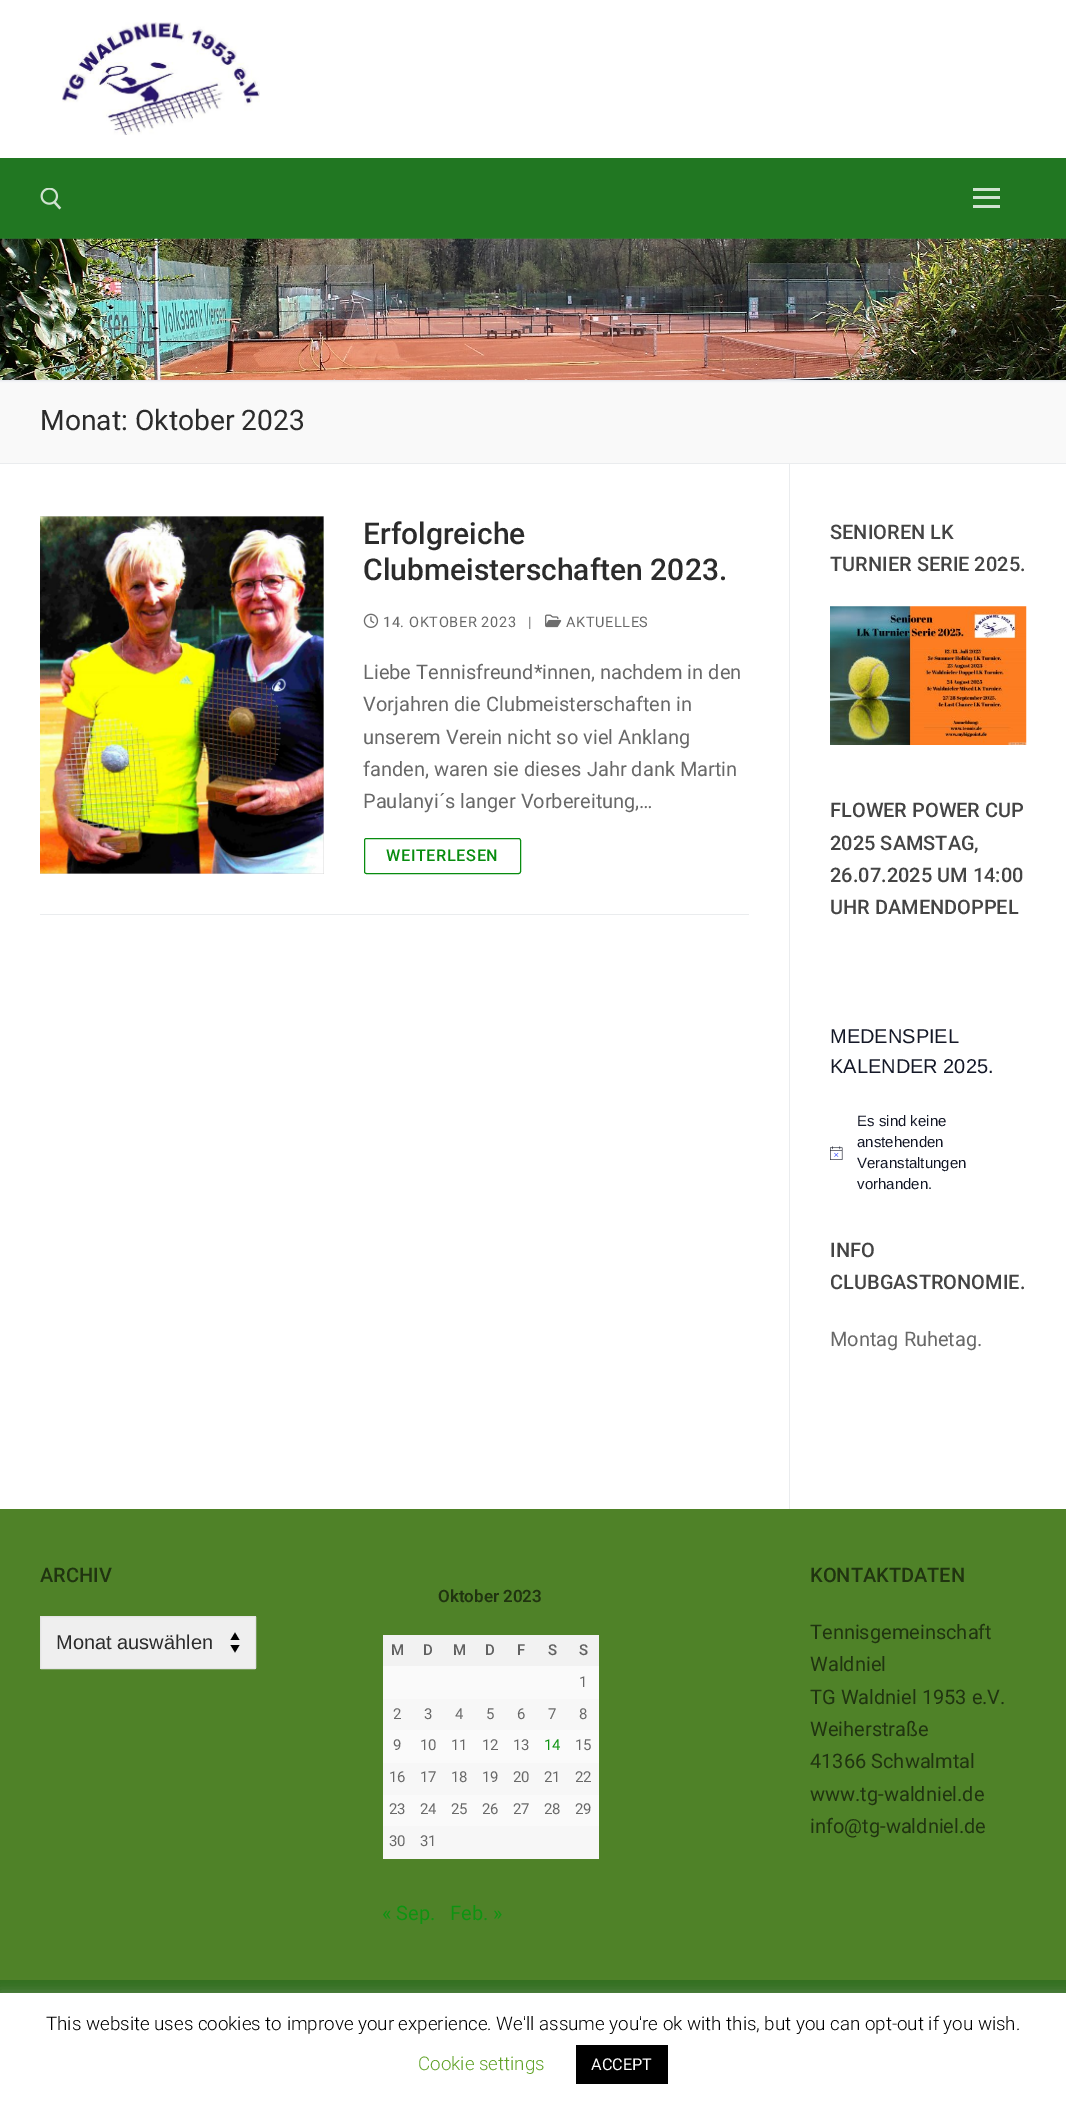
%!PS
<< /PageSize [1066 2104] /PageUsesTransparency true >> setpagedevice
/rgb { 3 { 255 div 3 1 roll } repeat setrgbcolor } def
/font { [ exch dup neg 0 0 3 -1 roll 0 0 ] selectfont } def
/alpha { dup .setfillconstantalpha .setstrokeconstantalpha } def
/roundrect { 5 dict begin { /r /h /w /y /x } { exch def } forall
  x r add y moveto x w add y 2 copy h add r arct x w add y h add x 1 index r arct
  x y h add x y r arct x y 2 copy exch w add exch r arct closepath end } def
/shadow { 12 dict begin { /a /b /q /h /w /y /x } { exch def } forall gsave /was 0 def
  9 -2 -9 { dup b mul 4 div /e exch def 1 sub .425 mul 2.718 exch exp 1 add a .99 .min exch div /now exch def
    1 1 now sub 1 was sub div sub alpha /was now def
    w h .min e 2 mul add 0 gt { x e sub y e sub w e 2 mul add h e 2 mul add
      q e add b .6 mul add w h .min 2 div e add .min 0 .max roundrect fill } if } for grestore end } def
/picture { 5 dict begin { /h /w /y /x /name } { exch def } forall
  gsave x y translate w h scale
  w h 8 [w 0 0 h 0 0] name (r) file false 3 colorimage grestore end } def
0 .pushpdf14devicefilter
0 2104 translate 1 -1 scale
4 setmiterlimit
255 255 255 rgb
0 0 1066 2104 rectfill
(img/1.rgb) 62 22 198 113 picture
33 119 34 rgb
0 158 1066 81 rectfill
(img/2.rgb) 40 188 22 22 picture
[
  [973 196 27 3 208 226 209]
  [973 188 27 3 208 226 209]
  [973 205 27 3 208 226 209]
  [0 380 1066 83 249 249 249]
] { aload pop rgb rectfill } forall
225 229 234 rgb
0 240 1066 141 0 1 1 shadow
(img/3.rgb) 0 238 1066 142 picture
[
  [0 463 1066 1 234 236 238]
  [789 464 1 1045 234 236 238]
  [40 914 709 1 234 236 238]
  [40 516 284 358 213 213 213]
] { aload pop rgb rectfill } forall
(img/4.rgb) 40 516 284 358 picture
(img/5.rgb) 363 613 16 15 picture
(img/6.rgb) 545 614 17 14 picture
8 140 15 rgb
364.5 838.5 156 35 2 roundrect stroke
(img/7.rgb) 830 606 197 139 picture
(img/8.rgb) 830 1146 13 14 picture
79 130 40 rgb
0 1509 1066 471 rectfill
239 239 239 rgb
40 1616 216 53 1 roundrect fill
0 0 0 rgb
235 1632.5 moveto 230.5 1640 lineto 239.5 1640 lineto closepath 235 1652.5 moveto 239.5 1645 lineto 230.5 1645 lineto closepath fill
229 229 229 rgb
40.5 1616.5 215 52 0.5 roundrect stroke
[
  [383 1635 216 31 242 242 242]
  [383 1666 216 33 250 250 250]
  [383 1699 216 31 247 247 247]
  [383 1730 216 33 250 250 250]
  [383 1763 216 32 247 247 247]
  [383 1795 216 31 250 250 250]
  [383 1826 216 33 247 247 247]
  [0 1980 1066 13 51 112 31]
] { aload pop rgb rectfill } forall
172 171 171 rgb
0 1991 1066 113 0 6 0.3 shadow
255 255 255 rgb
0 1993 1066 111 rectfill
0 0 0 rgb
576 2045 92 39 rectfill
/Roboto-Regular 28.25 font
43 43 43 rgb
40 430 moveto (Monat: Oktober 2023) show
/Roboto-Medium 30 font
363 544 moveto (Erfolgreiche) show
363 580 moveto (Clubmeisterschaften 2023.) show
/Roboto-Regular 14.5 font
104 104 104 rgb
383 627 moveto 0.6 0 (14. OKTOBER 2023) ashow
528 627 moveto 0.6 0 (|) ashow
566 627 moveto 0.6 0 (AKTUELLES) ashow
/Roboto-Regular 20 font
[
  [(Liebe Tennisfreund*innen, nachdem in den) 363 679]
  [(Vorjahren die Clubmeisterschaften in) 363 711]
  [(unserem Verein nicht so viel Anklang) 363 744]
  [(fanden, waren sie dieses Jahr dank Martin) 363 776]
  [(Paulanyi´s langer Vorbereitung,…) 363 808]
] { aload pop moveto show } forall
/Roboto-Medium 16.25 font
8 140 15 rgb
386 861 moveto 0.6 0 (WEITERLESEN) ashow
/Roboto-Medium 20 font
68 68 68 rgb
[
  [(SENIOREN LK) 830 539]
  [(TURNIER SERIE 2025.) 830 571]
  [(FLOWER POWER CUP) 830 817]
  [(2025 SAMSTAG,) 830 850]
  [(26.07.2025 UM 14:00) 830 882]
  [(UHR DAMENDOPPEL) 830 914]
] { aload pop moveto show } forall
/LiberationSans-Regular 20 font
20 24 39 rgb
830 1043 moveto (MEDENSPIEL) show
830 1073 moveto (KALENDER 2025.) show
/LiberationSans-Regular 15 font
[
  [(Es sind keine) 857 1126]
  [(anstehenden) 857 1147]
  [(Veranstaltungen) 857 1168]
  [(vorhanden.) 857 1189]
] { aload pop moveto show } forall
/Roboto-Medium 20 font
68 68 68 rgb
830 1257 moveto (INFO) show
830 1289 moveto (CLUBGASTRONOMIE.) show
/Roboto-Regular 20 font
104 104 104 rgb
830 1346 moveto (Montag Ruhetag.) show
/Roboto-Medium 20 font
32 52 16 rgb
40 1582 moveto (ARCHIV) show
/LiberationSans-Regular 20 font
43 43 43 rgb
56 1649 moveto (Monat auswählen) show
/Roboto-SemiBold 17 font
32 52 16 rgb
438 1602 moveto (Oktober 2023) show
/Roboto-Medium 15 font
97 97 97 rgb
[
  [(M) 391 1655]
  [(D) 423 1655]
  [(M) 453 1655]
  [(D) 485 1655]
  [(F) 517 1655]
  [(S) 548 1655]
  [(S) 579 1655]
] { aload pop moveto show } forall
/Roboto-Regular 15 font
104 104 104 rgb
[
  [(1) 579 1687]
  [(2) 393 1719]
  [(3) 424 1719]
  [(4) 455 1719]
  [(5) 486 1719]
  [(6) 517 1719]
  [(7) 548 1719]
  [(8) 579 1719]
  [(9) 393 1750]
  [(10) 420 1750]
  [(11) 451 1750]
  [(12) 482 1750]
  [(13) 513 1750]
] { aload pop moveto show } forall
14 147 17 rgb
544 1750 moveto (14) show
104 104 104 rgb
[
  [(15) 575 1750]
  [(16) 389 1782]
  [(17) 420 1782]
  [(18) 451 1782]
  [(19) 482 1782]
  [(20) 513 1782]
  [(21) 544 1782]
  [(22) 575 1782]
  [(23) 389 1814]
  [(24) 420 1814]
  [(25) 451 1814]
  [(26) 482 1814]
  [(27) 513 1814]
  [(28) 544 1814]
  [(29) 575 1814]
  [(30) 389 1846]
  [(31) 420 1846]
] { aload pop moveto show } forall
/Roboto-Regular 20 font
14 147 17 rgb
382 1920 moveto (« Sep.) show
450 1920 moveto (Feb. ») show
/Roboto-Medium 20 font
32 52 16 rgb
810 1582 moveto (KONTAKTDATEN) show
/Roboto-Regular 20 font
[
  [(Tennisgemeinschaft) 810 1639]
  [(Waldniel) 810 1671]
  [(TG Waldniel 1953 e.V.) 810 1704]
  [(Weiherstraße) 810 1736]
  [(41366 Schwalmtal) 810 1768]
  [(www.tg-waldniel.de) 810 1801]
  [(info@tg-waldniel.de) 810 1833]
] { aload pop moveto show } forall
/Roboto-Light 18.75 font
0 0 0 rgb
46 2030 moveto (This website uses cookies to improve your experience. We'll assume you're ok with this, but you can opt-out if you wish.) show
98 163 41 rgb
418 2070 moveto (Cookie settings) show
/Roboto-Regular 16.25 font
255 255 255 rgb
591 2070 moveto (ACCEPT) show
.poppdf14devicefilter showpage
